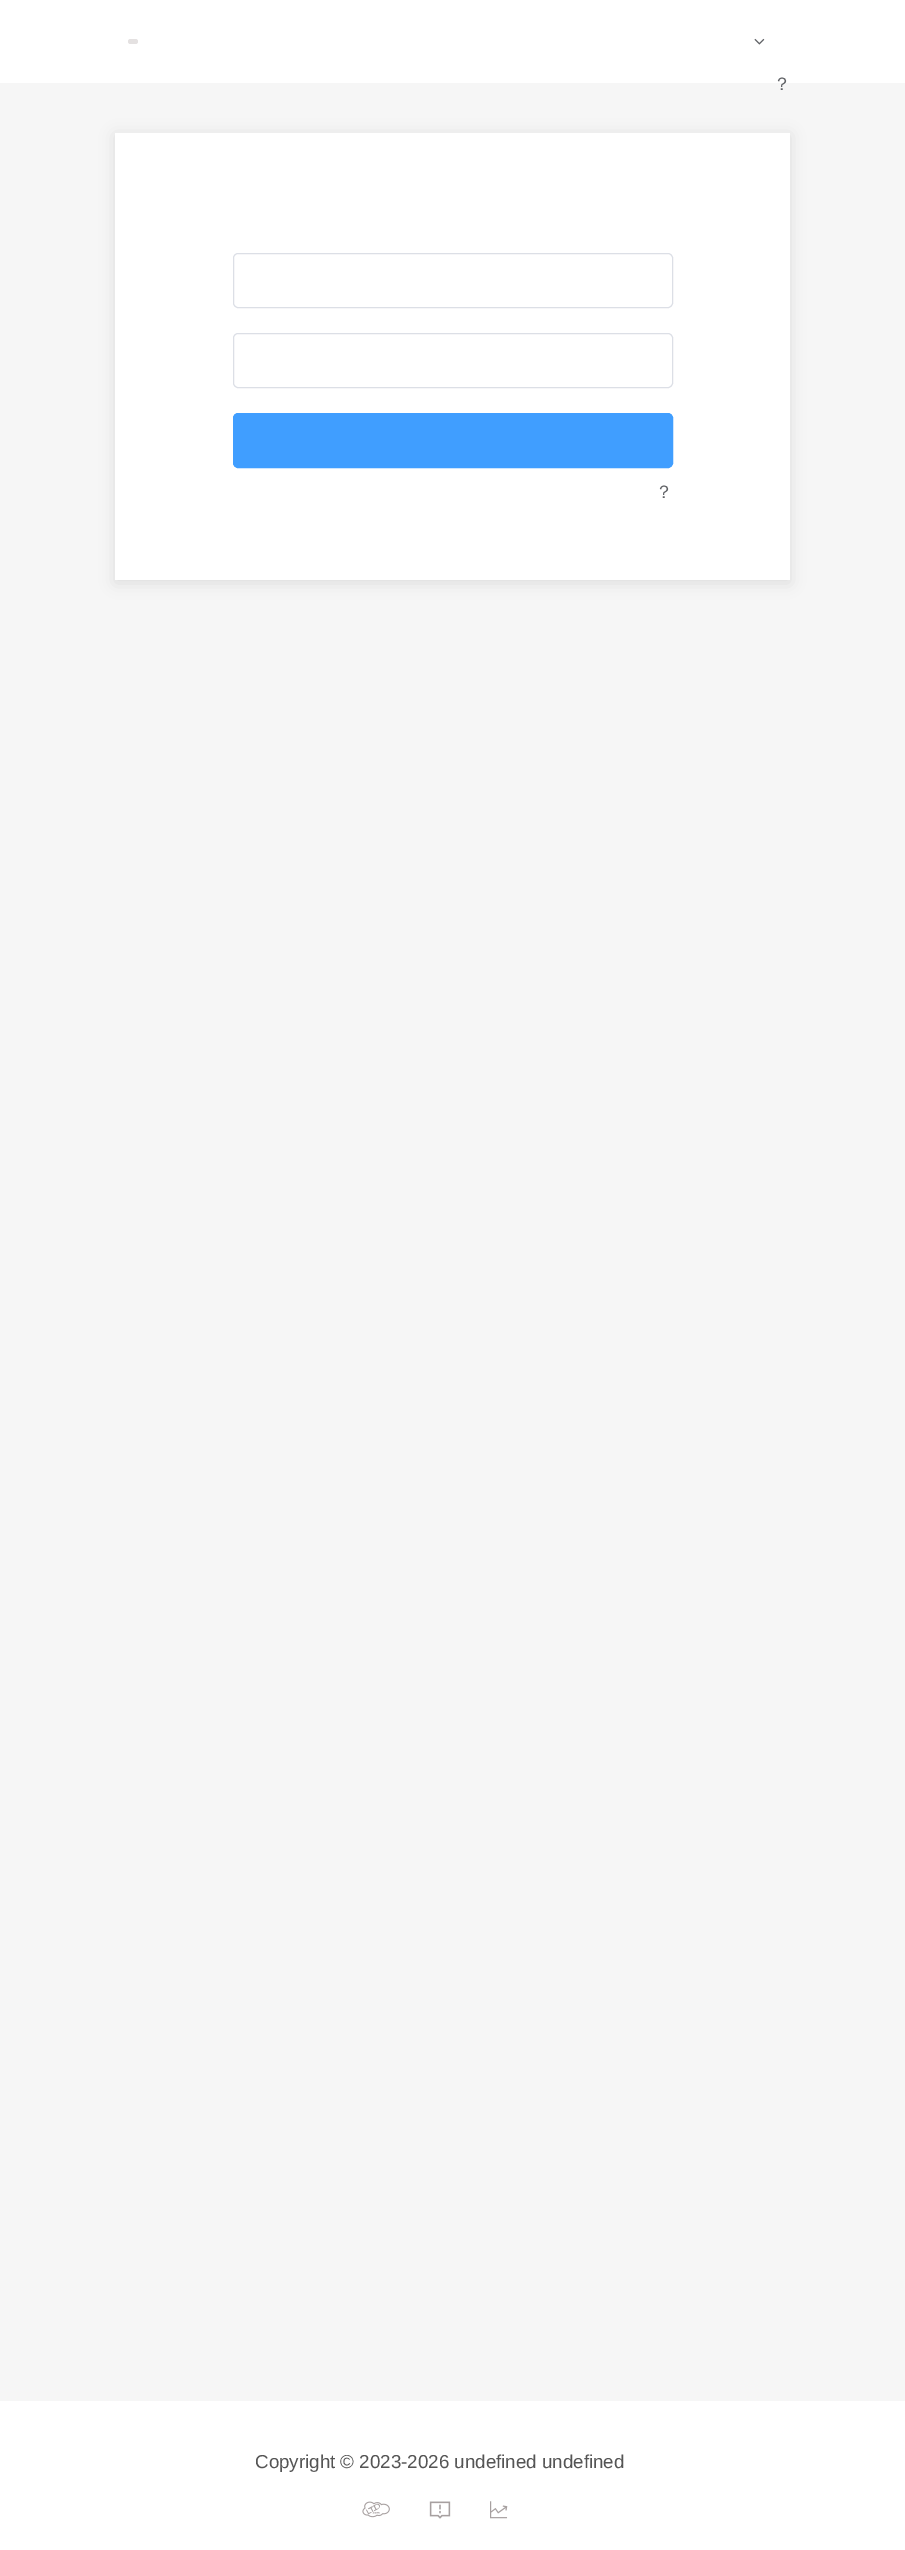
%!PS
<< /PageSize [905 2550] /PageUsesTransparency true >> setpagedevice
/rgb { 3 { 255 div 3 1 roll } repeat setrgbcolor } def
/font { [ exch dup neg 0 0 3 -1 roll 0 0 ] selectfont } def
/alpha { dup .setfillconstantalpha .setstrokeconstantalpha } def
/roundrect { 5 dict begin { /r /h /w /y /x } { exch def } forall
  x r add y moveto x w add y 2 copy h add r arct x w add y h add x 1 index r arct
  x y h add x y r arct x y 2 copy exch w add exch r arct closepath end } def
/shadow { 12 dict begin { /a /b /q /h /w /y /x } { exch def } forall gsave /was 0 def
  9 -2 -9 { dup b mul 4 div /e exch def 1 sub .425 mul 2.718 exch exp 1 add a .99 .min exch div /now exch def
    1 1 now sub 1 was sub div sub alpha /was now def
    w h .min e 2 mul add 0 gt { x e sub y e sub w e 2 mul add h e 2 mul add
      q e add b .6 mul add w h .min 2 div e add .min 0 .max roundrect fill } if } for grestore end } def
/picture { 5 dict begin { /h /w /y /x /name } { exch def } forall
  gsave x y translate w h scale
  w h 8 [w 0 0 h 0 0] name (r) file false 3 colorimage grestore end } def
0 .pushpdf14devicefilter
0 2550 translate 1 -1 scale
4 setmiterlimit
246 246 246 rgb
0 0 905 2550 rectfill
255 255 255 rgb
0 0 905 83 rectfill
228 225 225 rgb
128 39 10 5 2.5 roundrect fill
(img/1.rgb) 754 38 11 7 picture
0 0 0 rgb
115 135 675 448 0 7.5 0.1 shadow
255 255 255 rgb
115 133 675 447 rectfill
220 223 230 rgb
233.5 253.5 439 54 4.5 roundrect stroke
233.5 333.5 439 54 4.5 roundrect stroke
64 158 255 rgb
233.5 413.5 439 54 4.5 roundrect gsave fill grestore
stroke
255 255 255 rgb
0 2401 905 149 rectfill
(img/2.rgb) 362 2501 28 17 picture
(img/3.rgb) 429 2501 22 18 picture
(img/4.rgb) 490 2501 18 18 picture
/WenQuanYiZenHei-Medium 18 font
96 98 102 rgb
773 90 moveto (？) show
655 498 moveto (？) show
/LiberationSans-Regular 18.75 font
85 85 85 rgb
255 2468 moveto (Copyright © 2023-2026 undefined undefined) show
.poppdf14devicefilter showpage
